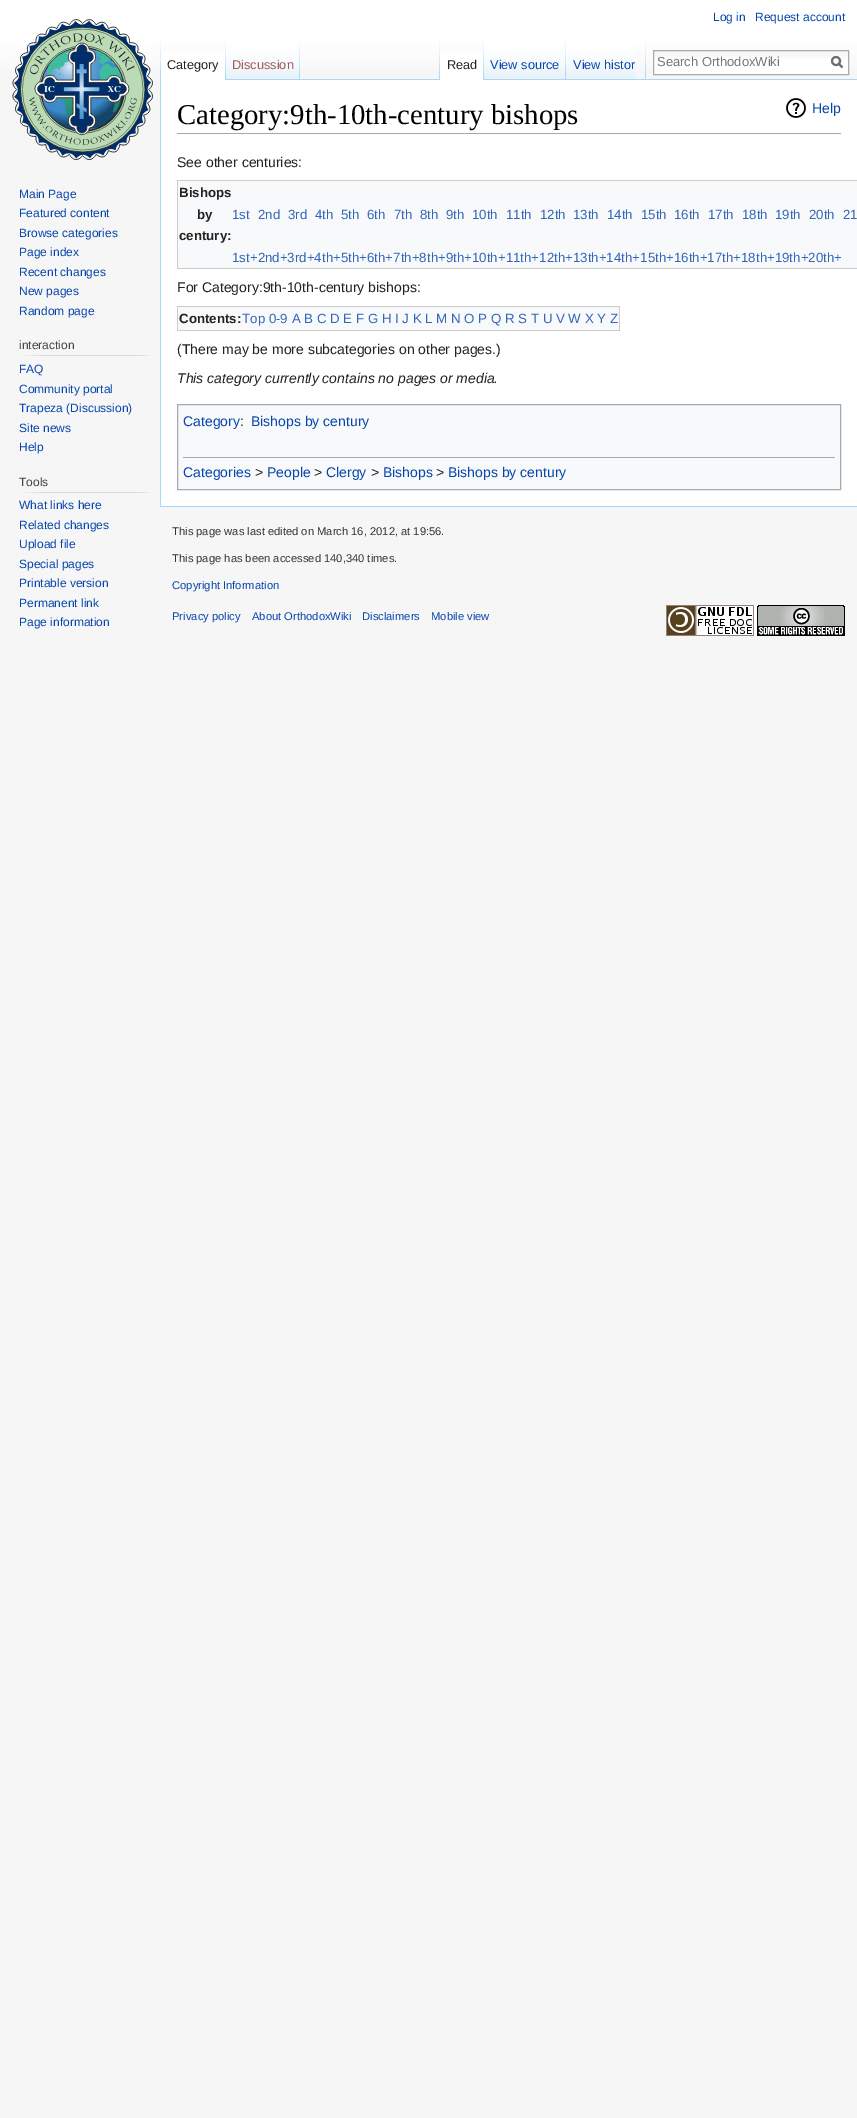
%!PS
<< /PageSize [857 2118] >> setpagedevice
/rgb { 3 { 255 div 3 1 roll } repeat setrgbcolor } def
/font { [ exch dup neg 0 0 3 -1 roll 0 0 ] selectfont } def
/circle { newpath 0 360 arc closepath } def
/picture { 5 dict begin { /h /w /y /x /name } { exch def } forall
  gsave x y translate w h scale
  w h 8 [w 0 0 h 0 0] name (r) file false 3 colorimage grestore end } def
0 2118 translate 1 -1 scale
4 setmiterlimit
246 246 246 rgb
0 0 857 2118 rectfill
gsave 0 0 moveto 857 0 lineto 857 69 lineto 0 69 lineto closepath clip newpath
<< /ShadingType 2 /ColorSpace /DeviceRGB /Coords [429 0 429 80] /Extend [true true] /Function << /FunctionType 3 /Domain [0 1] /Functions [<< /FunctionType 2 /Domain [0 1] /C0 [1 1 1] /C1 [1 1 1] /N 1 >> << /FunctionType 2 /Domain [0 1] /C0 [1 1 1] /C1 [0.965 0.965 0.965] /N 1 >>] /Bounds [0.5] /Encode [0 1 0 1] >> >> shfill grestore
(img/1.rgb) 160 40 1 39 picture
255 255 255 rgb
161 51 64 29 rectfill
(img/2.rgb) 225 40 1 40 picture
(img/3.rgb) 226 40 74 40 picture
(img/1.rgb) 299 40 1 39 picture
(img/1.rgb) 439 40 1 39 picture
167 215 249 rgb
300 79 557 1 rectfill
255 255 255 rgb
440 51 43 29 rectfill
(img/2.rgb) 483 40 1 40 picture
(img/4.rgb) 484 40 82 40 picture
(img/1.rgb) 565 40 1 39 picture
(img/5.rgb) 566 40 70 40 picture
(img/1.rgb) 645 40 1 39 picture
654 59 194 15 rectfill
(img/6.rgb) 654 51 194 8 picture
170 170 170 rgb
653.5 50.5 195 24 rectstroke
108 108 108 rgb
2 setlinewidth
842.5 67.5 moveto 838.5 63.5 lineto stroke
836 61 4 circle stroke
(img/7.rgb) 12 19 141 141 picture
(img/8.rgb) 22 355 128 1 picture
(img/8.rgb) 22 492 128 1 picture
[
  [161 80 696 426 255 255 255]
  [160 506 697 1 167 215 249]
  [160 79 1 428 167 215 249]
  [177 133 664 1 162 169 177]
] { aload pop rgb rectfill } forall
(img/9.rgb) 786 98 20 20 picture
[
  [178 181 679 87 248 249 250]
  [177 180 680 1 204 204 204]
  [177 268 680 1 204 204 204]
  [177 180 1 89 204 204 204]
  [178 307 441 23 248 249 250]
  [177 306 443 1 204 204 204]
  [619 306 1 25 204 204 204]
  [177 330 443 1 204 204 204]
  [177 306 1 25 204 204 204]
] { aload pop rgb rectfill } forall
248 249 250 rgb
177.5 404.5 moveto 840.5 404.5 lineto 840.5 489.5 lineto 177.5 489.5 lineto closepath gsave fill grestore
162 169 177 rgb
1 setlinewidth
stroke
183 457 652 1 rectfill
(img/10.rgb) 666 605 179 31 picture
/LiberationSans-Regular 12 font
6 69 173 rgb
713 21 moveto (Log in) show
755 21 moveto (Request account) show
/LiberationSans-Regular 12.75 font
34 34 34 rgb
167 69 moveto (Category) show
165 88 88 rgb
232 69 moveto (Discussion) show
34 34 34 rgb
447 69 moveto (Read) show
6 69 173 rgb
490 69 moveto (View source) show
573 69 moveto (View histor) show
/LiberationSans-Regular 13 font
114 119 125 rgb
657 66 moveto (Search OrthodoxWiki) show
/LiberationSans-Regular 12 font
6 69 173 rgb
[
  [(Main Page) 19 198]
  [(Featured content) 19 217]
  [(Browse categories) 19 237]
  [(Page index) 19 256]
  [(Recent changes) 19 276]
  [(New pages) 19 295]
  [(Random page) 19 315]
] { aload pop moveto show } forall
68 68 68 rgb
19 349 moveto (interaction) show
6 69 173 rgb
[
  [(FAQ) 19 373]
  [(Community portal) 19 393]
  [(Trapeza \(Discussion\)) 19 412]
  [(Site news) 19 432]
  [(Help) 19 451]
] { aload pop moveto show } forall
68 68 68 rgb
19 486 moveto (Tools) show
6 69 173 rgb
[
  [(What links here) 19 509]
  [(Related changes) 19 529]
  [(Upload file) 19 548]
  [(Special pages) 19 568]
  [(Printable version) 19 587]
  [(Permanent link) 19 607]
  [(Page information) 19 626]
] { aload pop moveto show } forall
/LiberationSerif-Regular 28.75 font
0 0 0 rgb
177 124 moveto (Category:9th-10th-century bishops) show
/LiberationSans-Regular 14 font
6 69 173 rgb
812 113 moveto (Help) show
34 34 34 rgb
177 167 moveto (See other centuries:) show
/LiberationSans-Bold 13.3 font
[
  [(Bishops) 179 197]
  [(by) 197 219]
  [(century:) 179 240]
] { aload pop moveto show } forall
/LiberationSans-Regular 13.3 font
51 102 187 rgb
[
  [(1st) 232 219]
  [(2nd) 258 219]
  [(3rd) 288 219]
  [(4th) 315 219]
  [(5th) 341 219]
  [(6th) 367 219]
  [(7th) 394 219]
  [(8th) 420 219]
  [(9th) 446 219]
  [(10th) 472 219]
  [(11th) 506 219]
  [(12th) 540 219]
  [(13th) 573 219]
  [(14th) 607 219]
  [(15th) 641 219]
  [(16th) 674 219]
  [(17th) 708 219]
  [(18th) 742 219]
  [(19th) 775 219]
  [(20th) 809 219]
  [(21) 843 219]
  [(1st+2nd+3rd+4th+5th+6th+7th+8th+9th+10th+11th+12th+13th+14th+15th+16th+17th+18th+19th+20th+) 232 262]
] { aload pop moveto show } forall
/LiberationSans-Regular 14 font
34 34 34 rgb
177 292 moveto (For Category:9th-10th-century bishops:) show
/LiberationSans-Bold 13.3 font
179 323 moveto (Contents:) show
/LiberationSans-Regular 13.3 font
51 102 187 rgb
242 323 moveto (Top 0-9 A B C D E F G H I J K L M N O P Q R S T U V W X Y Z) show
/LiberationSans-Regular 14 font
34 34 34 rgb
177 354 moveto (\(There may be more subcategories on other pages.\)) show
/LiberationSans-Italic 14 font
177 383 moveto (This category currently contains no pages or media.) show
/LiberationSans-Regular 14 font
6 69 173 rgb
183 426 moveto (Category) show
34 34 34 rgb
240 426 moveto (:) show
6 69 173 rgb
251 426 moveto (Bishops by century) show
183 477 moveto (Categories) show
34 34 34 rgb
255 477 moveto (>) show
6 69 173 rgb
267 477 moveto (People) show
34 34 34 rgb
314 477 moveto (>) show
6 69 173 rgb
326 477 moveto (Clergy) show
34 34 34 rgb
371 477 moveto (>) show
6 69 173 rgb
383 477 moveto (Bishops) show
34 34 34 rgb
436 477 moveto (>) show
6 69 173 rgb
448 477 moveto (Bishops by century) show
/LiberationSans-Regular 11.2 font
51 51 51 rgb
172 535 moveto (This page was last edited on March 16, 2012, at 19:56.) show
172 562 moveto (This page has been accessed 140,340 times.) show
6 69 173 rgb
[
  [(Copyright Information) 172 589]
  [(Privacy policy) 172 620]
  [(About OrthodoxWiki) 252 620]
  [(Disclaimers) 362 620]
  [(Mobile view) 431 620]
] { aload pop moveto show } forall
showpage
